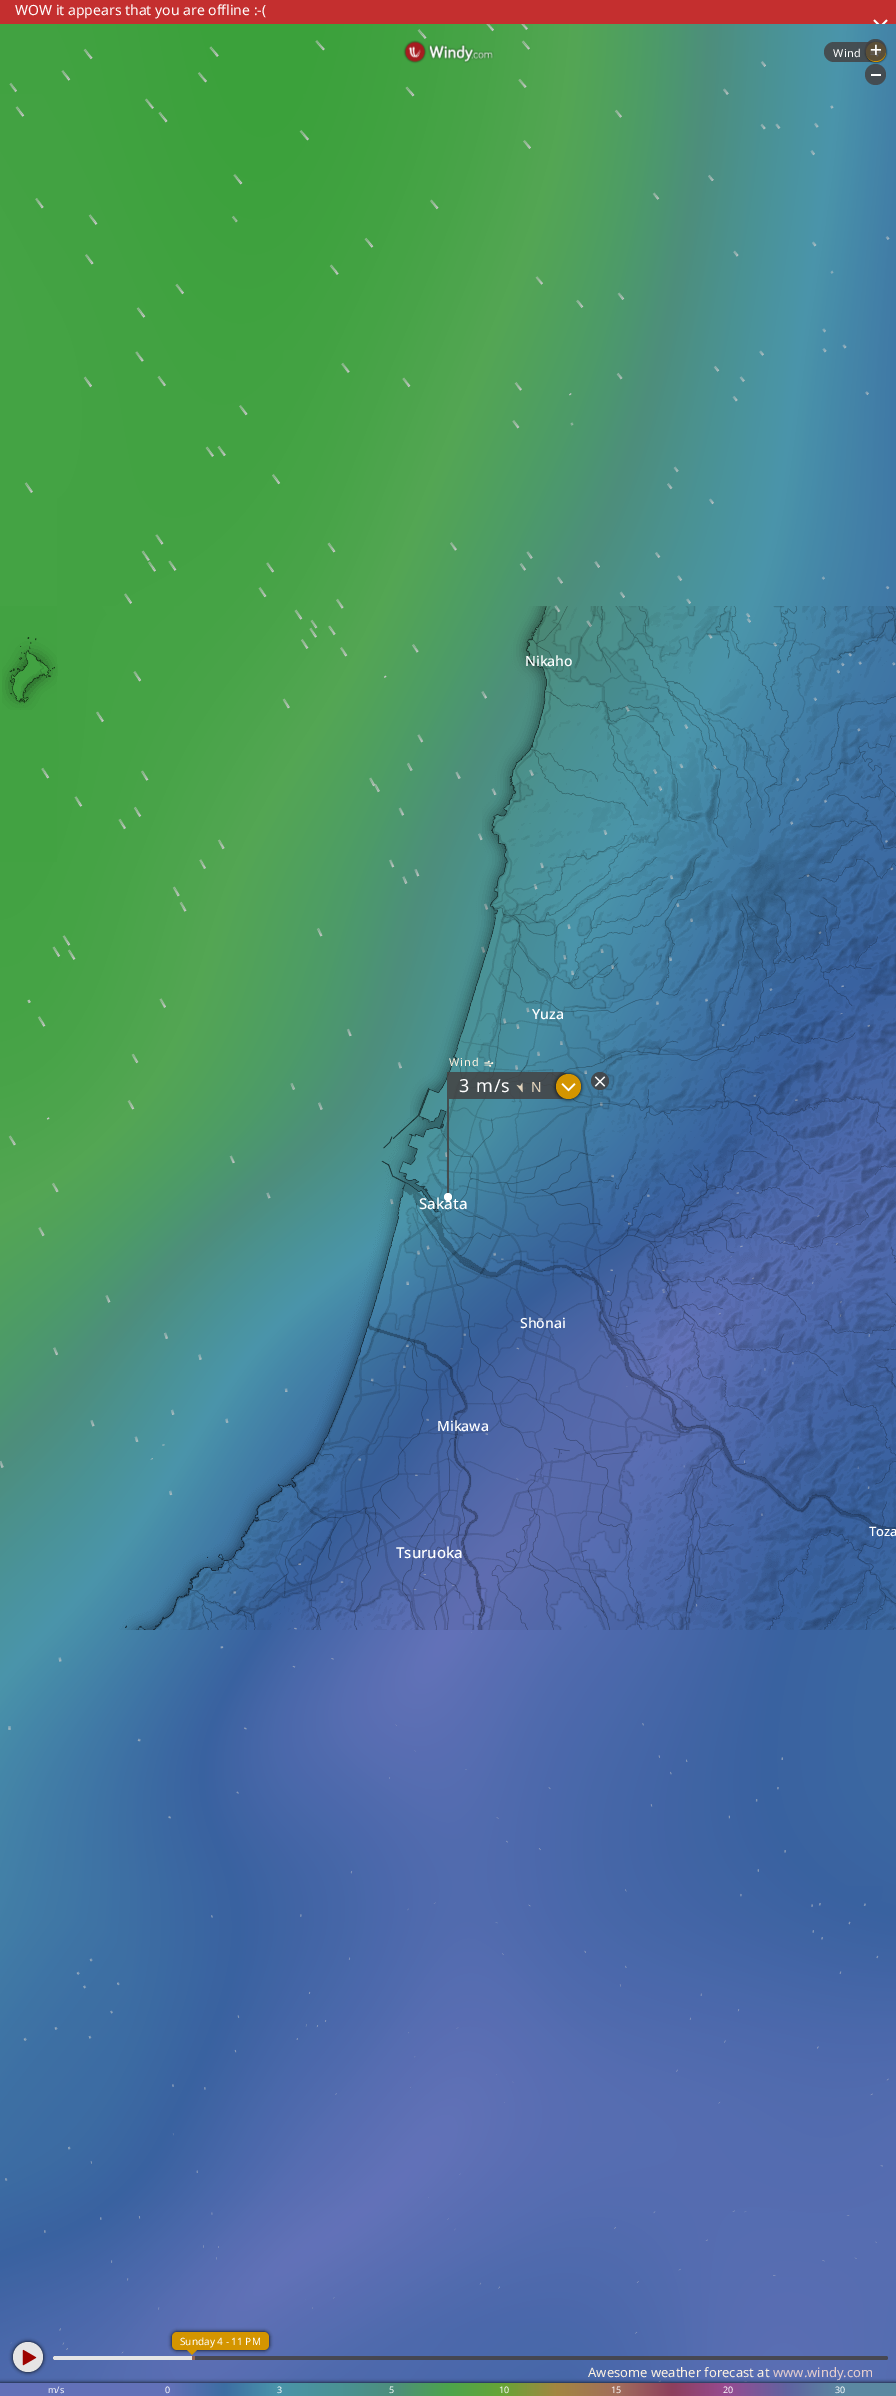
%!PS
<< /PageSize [896 2396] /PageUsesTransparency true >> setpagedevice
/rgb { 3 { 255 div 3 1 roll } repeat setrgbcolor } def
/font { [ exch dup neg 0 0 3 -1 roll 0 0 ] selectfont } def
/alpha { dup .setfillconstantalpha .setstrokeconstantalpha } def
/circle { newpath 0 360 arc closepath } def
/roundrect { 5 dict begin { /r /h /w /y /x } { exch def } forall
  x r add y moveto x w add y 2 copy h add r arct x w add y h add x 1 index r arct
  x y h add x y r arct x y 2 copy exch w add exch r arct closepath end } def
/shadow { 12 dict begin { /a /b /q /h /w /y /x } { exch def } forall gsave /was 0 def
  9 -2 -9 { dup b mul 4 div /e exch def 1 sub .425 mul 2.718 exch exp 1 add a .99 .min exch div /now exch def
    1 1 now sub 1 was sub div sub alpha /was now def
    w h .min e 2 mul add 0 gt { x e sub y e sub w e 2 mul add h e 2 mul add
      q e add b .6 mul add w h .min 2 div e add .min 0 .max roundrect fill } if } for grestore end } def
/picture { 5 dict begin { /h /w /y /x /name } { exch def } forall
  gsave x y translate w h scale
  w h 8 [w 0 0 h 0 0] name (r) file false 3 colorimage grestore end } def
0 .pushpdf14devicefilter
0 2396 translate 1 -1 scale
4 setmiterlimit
255 255 255 rgb
0 0 896 2396 rectfill
196 47 47 rgb
0 0 896 24 rectfill
(img/1.rgb) 873 19 15 5 picture
(img/7.rgb) 313 24 256 70 picture
65 162 65 rgb
0 24 57 70 rectfill
(img/6.rgb) 57 24 256 70 picture
(img/8.rgb) 569 24 256 70 picture
(img/9.rgb) 825 24 71 70 picture
(img/10.rgb) 0 94 57 256 picture
(img/11.rgb) 57 94 256 256 picture
(img/12.rgb) 313 94 256 256 picture
(img/13.rgb) 569 94 256 256 picture
(img/14.rgb) 825 94 71 256 picture
68 163 68 rgb
0 350 57 256 rectfill
(img/15.rgb) 57 350 256 256 picture
(img/16.rgb) 313 350 256 256 picture
(img/17.rgb) 569 350 256 256 picture
(img/18.rgb) 825 350 71 256 picture
66 162 66 rgb
0 606 57 256 rectfill
(img/19.rgb) 57 606 256 256 picture
(img/20.rgb) 313 606 256 256 picture
(img/21.rgb) 569 606 256 256 picture
(img/22.rgb) 825 606 71 256 picture
(img/23.rgb) 0 862 57 256 picture
(img/24.rgb) 57 862 256 256 picture
(img/25.rgb) 313 862 256 256 picture
(img/26.rgb) 569 862 256 256 picture
(img/27.rgb) 825 862 71 256 picture
(img/28.rgb) 0 1118 57 256 picture
(img/29.rgb) 57 1118 256 256 picture
(img/30.rgb) 313 1118 256 256 picture
(img/31.rgb) 569 1118 256 256 picture
(img/32.rgb) 825 1118 71 256 picture
(img/33.rgb) 0 1374 57 256 picture
(img/34.rgb) 57 1374 256 256 picture
(img/35.rgb) 313 1374 256 256 picture
(img/36.rgb) 569 1374 256 256 picture
(img/37.rgb) 825 1374 71 256 picture
(img/38.rgb) 0 1630 57 256 picture
(img/39.rgb) 57 1630 256 256 picture
(img/40.rgb) 313 1630 256 256 picture
(img/41.rgb) 569 1630 256 256 picture
(img/42.rgb) 825 1630 71 256 picture
(img/43.rgb) 0 1886 57 256 picture
(img/44.rgb) 57 1886 256 256 picture
(img/45.rgb) 313 1886 256 256 picture
(img/46.rgb) 569 1886 256 256 picture
(img/47.rgb) 825 1886 71 256 picture
(img/48.rgb) 0 2142 57 241 picture
(img/49.rgb) 57 2142 256 241 picture
(img/50.rgb) 313 2142 256 241 picture
(img/51.rgb) 569 2142 256 241 picture
(img/52.rgb) 825 2142 71 241 picture
(img/53.rgb) 0 24 896 2359 picture
(img/2.rgb) 403 40 24 24 picture
(img/3.rgb) 428 44 66 19 picture
0.84 alpha
68 65 65 rgb
824 42 62 20 10 roundrect fill
1 alpha
0 0 0 rgb
866 42 20 20 10 1 1 shadow
212 149 0 rgb
876 52 10 circle fill
(img/4.rgb) 870 50 11 7 picture
0.84 alpha
68 65 65 rgb
865 39 21 22 10.5 roundrect fill
1 alpha
(img/5.rgb) 870 44 12 11 picture
0.84 alpha
875.5 74.5 10.5 circle fill
1 alpha
255 255 255 rgb
871 74 10 2 rectfill
(img/54.rgb) 2 637 55 73 picture
65 157 65 rgb
57 664 1 12 rectfill
(img/55.rgb) 482 606 87 256 picture
(img/56.rgb) 569 606 256 256 picture
(img/57.rgb) 825 606 71 256 picture
(img/58.rgb) 410 862 159 256 picture
(img/59.rgb) 569 862 256 256 picture
(img/60.rgb) 825 862 71 256 picture
(img/61.rgb) 335 1118 234 256 picture
(img/62.rgb) 569 1118 256 256 picture
(img/63.rgb) 825 1118 71 256 picture
(img/64.rgb) 119 1429 194 201 picture
(img/65.rgb) 313 1374 256 256 picture
(img/66.rgb) 569 1374 256 256 picture
(img/67.rgb) 825 1374 71 256 picture
0.84 alpha
68 65 65 rgb
447 1072 2 125 rectfill
1 alpha
255 255 255 rgb
448 1197 4 circle fill
0.84 alpha
68 65 65 rgb
449 1072 moveto 559.5 1072 lineto 567 1072 573 1078 573 1085.5 curveto 573 1093 567 1099 559.5 1099 curveto 449 1099 lineto closepath fill
1 alpha
(img/68.rgb) 484 1060 10 7 picture
(img/69.rgb) 516 1082 7 11 picture
0 0 0 rgb
556 1074 25 25 12.5 2 1 shadow
212 149 0 rgb
568.5 1086.5 12.5 circle fill
(img/70.rgb) 561 1083 15 9 picture
0.84 alpha
68 65 65 rgb
600 1081 9 circle fill
1 alpha
(img/71.rgb) 594 1076 12 11 picture
0 0 0 rgb
13 2342 30 30 15 2 1 shadow
229 229 229 rgb
28 2357 15 circle fill
(img/72.rgb) 22 2349 15 17 picture
0 0 0 rgb
172 2332 97 18 5 2 1 shadow
212 149 0 rgb
172 2332 97 18 5 roundrect fill
187 2350 moveto 197 2350 lineto 192 2355 lineto closepath fill
0.84 alpha
68 65 65 rgb
53 2356 835 4 2 roundrect fill
1 alpha
229 229 229 rgb
55 2356 moveto 192 2356 lineto 192 2360 lineto 55 2360 lineto 54 2360 53 2359 53 2358 curveto 53 2357 54 2356 55 2356 curveto closepath fill
148 96 81 rgb
192 2356 3 4 rectfill
0 0 0 rgb
0 2383 896 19 0 2 1 shadow
gsave 0 2383 moveto 896 2383 lineto 896 2396 lineto 0 2396 lineto closepath clip newpath
<< /ShadingType 2 /ColorSpace /DeviceRGB /Coords [0 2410 896 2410] /Extend [true true] /Function << /FunctionType 3 /Domain [0 1] /Functions [<< /FunctionType 2 /Domain [0 1] /C0 [0.384 0.443 0.722] /C1 [0.384 0.443 0.722] /N 1 >> << /FunctionType 2 /Domain [0 1] /C0 [0.384 0.443 0.722] /C1 [0.239 0.431 0.639] /N 1 >> << /FunctionType 2 /Domain [0 1] /C0 [0.239 0.431 0.639] /C1 [0.29 0.58 0.667] /N 1 >> << /FunctionType 2 /Domain [0 1] /C0 [0.29 0.58 0.667] /C1 [0.29 0.573 0.58] /N 1 >> << /FunctionType 2 /Domain [0 1] /C0 [0.29 0.573 0.58] /C1 [0.302 0.557 0.486] /N 1 >> << /FunctionType 2 /Domain [0 1] /C0 [0.302 0.557 0.486] /C1 [0.298 0.643 0.298] /N 1 >> << /FunctionType 2 /Domain [0 1] /C0 [0.298 0.643 0.298] /C1 [0.404 0.643 0.212] /N 1 >> << /FunctionType 2 /Domain [0 1] /C0 [0.404 0.643 0.212] /C1 [0.635 0.529 0.251] /N 1 >> << /FunctionType 2 /Domain [0 1] /C0 [0.635 0.529 0.251] /C1 [0.635 0.427 0.361] /N 1 >> << /FunctionType 2 /Domain [0 1] /C0 [0.635 0.427 0.361] /C1 [0.553 0.247 0.361] /N 1 >> << /FunctionType 2 /Domain [0 1] /C0 [0.553 0.247 0.361] /C1 [0.592 0.294 0.569] /N 1 >> << /FunctionType 2 /Domain [0 1] /C0 [0.592 0.294 0.569] /C1 [0.373 0.392 0.627] /N 1 >> << /FunctionType 2 /Domain [0 1] /C0 [0.373 0.392 0.627] /C1 [0.357 0.533 0.631] /N 1 >> << /FunctionType 2 /Domain [0 1] /C0 [0.357 0.533 0.631] /C1 [0.357 0.533 0.631] /N 1 >>] /Bounds [0.19 0.25 0.31 0.38 0.44 0.5 0.56 0.62 0.69 0.75 0.81 0.88 0.94] /Encode [0 1 0 1 0 1 0 1 0 1 0 1 0 1 0 1 0 1 0 1 0 1 0 1 0 1 0 1] >> >> shfill grestore
/NotoSans-Regular 14 font
255 255 255 rgb
15 15 moveto (WOW it appears that you are offline :-\() show
/NotoSans-Regular 11 font
833 57 moveto 0.5 0 (Wind) ashow
/NotoSans-Medium 14 font
525 666 moveto (Nikaho) show
532 1019 moveto (Yuza) show
/NotoSans-Medium 15 font
419 1209 moveto (Sakata) show
/NotoSans-Medium 14 font
520 1328 moveto (Shōnai) show
437 1431 moveto (Mikawa) show
/NotoSans-Medium 15 font
396 1558 moveto (Tsuruoka) show
/NotoSans-Medium 13 font
869 1536 moveto (Toza) show
/NotoSans-Regular 11 font
255 243 225 rgb
449 1066 moveto 1 0 (Wind) ashow
/NotoSans-Regular 18 font
255 255 255 rgb
459 1092 moveto 1 0 (3 m/s) ashow
/NotoSans-Regular 14 font
228 213 189 rgb
531 1092 moveto 1 0 (N) ashow
/NotoSans-Regular 10 font
255 255 255 rgb
180 2345 moveto (Sunday 4 - 11 PM) show
/NotoSans-Regular 13 font
255 243 225 rgb
588 2377 moveto (Awesome weather forecast at) show
230 206 206 rgb
773 2377 moveto (www.windy.com) show
/NotoSans-Regular 9 font
255 255 255 rgb
[
  [(m/s) 48 2393]
  [(0) 165 2393]
  [(3) 277 2393]
  [(5) 389 2393]
  [(10) 499 2393]
  [(15) 611 2393]
  [(20) 723 2393]
  [(30) 835 2393]
] { aload pop moveto show } forall
.poppdf14devicefilter showpage
